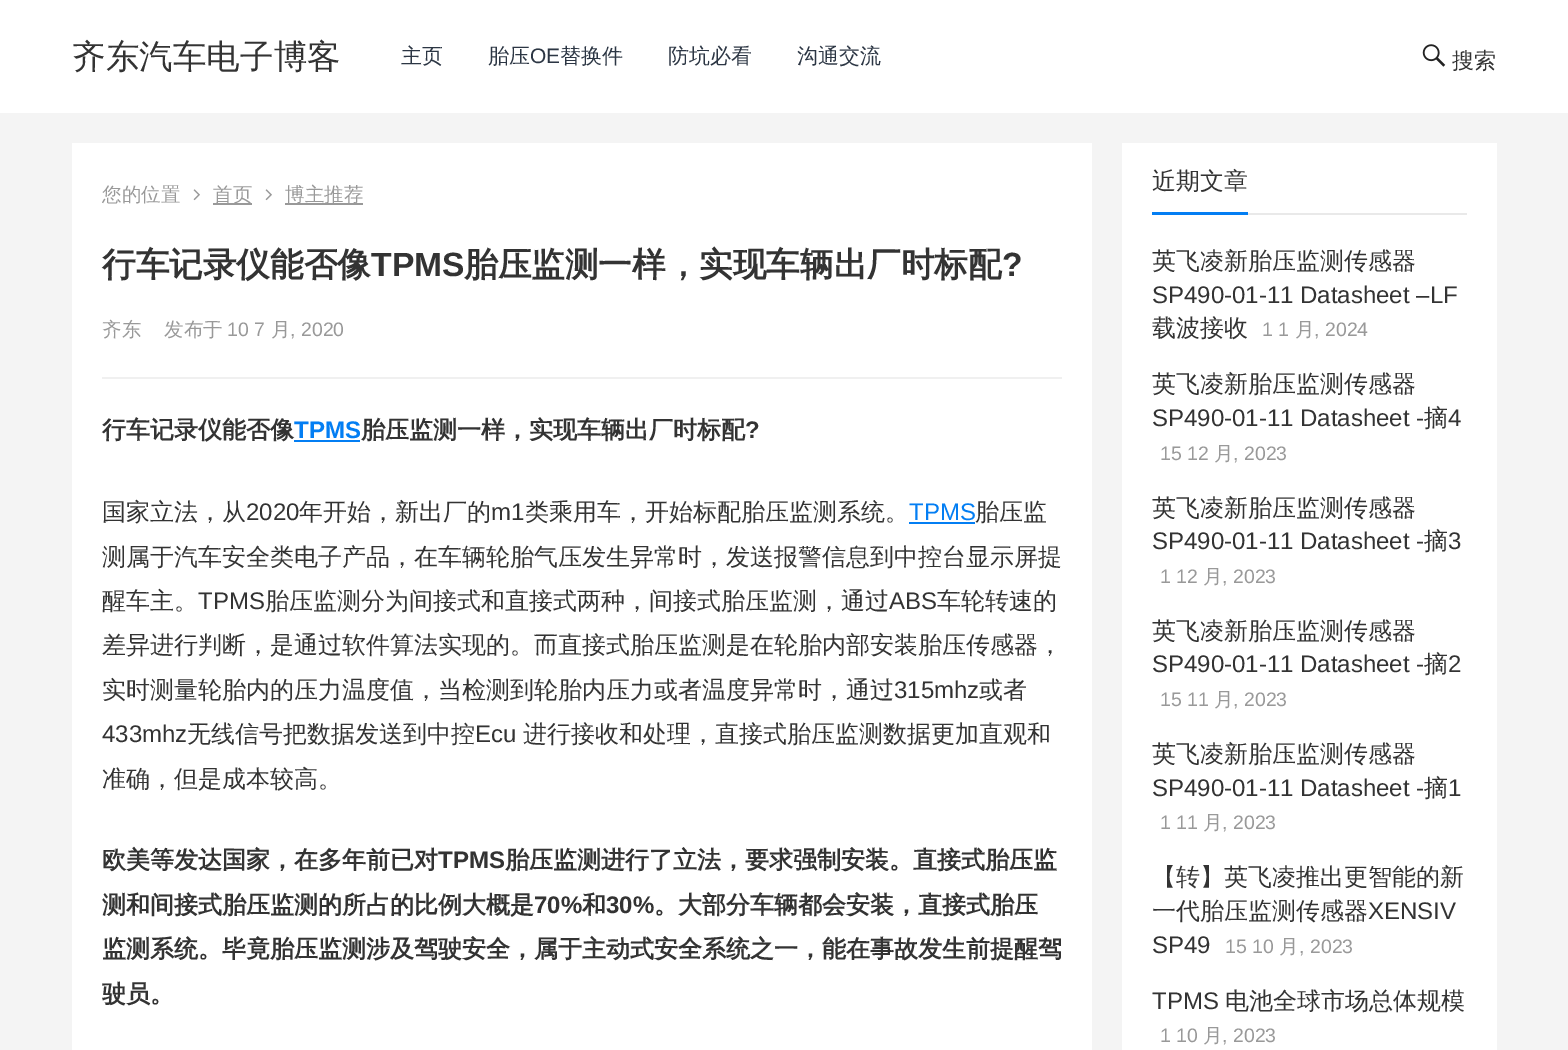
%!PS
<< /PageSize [1568 1050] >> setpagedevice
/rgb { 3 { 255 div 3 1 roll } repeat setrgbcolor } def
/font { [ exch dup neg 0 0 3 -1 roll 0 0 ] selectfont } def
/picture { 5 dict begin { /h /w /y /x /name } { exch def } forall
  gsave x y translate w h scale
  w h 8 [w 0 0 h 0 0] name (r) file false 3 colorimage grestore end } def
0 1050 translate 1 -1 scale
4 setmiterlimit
244 244 244 rgb
0 0 1568 1050 rectfill
255 255 255 rgb
0 0 1568 113 rectfill
(img/1.rgb) 1422 44 24 23 picture
72 143 1020 907 rectfill
(img/2.rgb) 193 189 7 12 picture
153 153 153 rgb
213 203 39 2 rectfill
(img/2.rgb) 265 189 7 12 picture
[
  [285 203 78 2 153 153 153]
  [102 377 960 2 240 240 240]
  [294 440 66 2 3 126 243]
  [909 522 66 2 3 126 243]
  [1122 143 375 907 255 255 255]
  [1248 213 219 2 233 233 233]
  [1152 212 96 3 3 126 243]
] { aload pop rgb rectfill } forall
/WenQuanYiZenHei-Medium 33.6 font
51 51 51 rgb
72 68 moveto (齐东汽车电子博客) show
/WenQuanYiZenHei-Medium 21 font
44 54 68 rgb
401 63 moveto (主页) show
488 63 moveto (胎压) show
/LiberationSans-Regular 21 font
530 63 moveto (OE) show
/WenQuanYiZenHei-Medium 21 font
[
  [(替换件) 560 63]
  [(防坑必看) 668 63]
  [(沟通交流) 797 63]
] { aload pop moveto show } forall
/WenQuanYiZenHei-Medium 22 font
51 51 51 rgb
1452 68 moveto (搜索) show
/WenQuanYiZenHei-Medium 19.5 font
153 153 153 rgb
[
  [(您的位置) 102 201]
  [(首页) 213 201]
  [(博主推荐) 285 201]
] { aload pop moveto show } forall
/WenQuanYiZenHei-Bold 33.6 font
51 51 51 rgb
102 276 moveto (行车记录仪能否像) show
/LiberationSans-Bold 33.6 font
371 276 moveto (TPMS) show
/WenQuanYiZenHei-Bold 33.6 font
464 276 moveto (胎压监测一样，实现车辆出厂时标配) show
/LiberationSans-Bold 33.6 font
1002 276 moveto (?) show
/WenQuanYiZenHei-Medium 19.5 font
153 153 153 rgb
102 336 moveto (齐东) show
164 336 moveto (发布于) show
/LiberationSans-Regular 19.5 font
227 336 moveto (10 7) show
/WenQuanYiZenHei-Medium 19.5 font
271 336 moveto (月) show
/LiberationSans-Regular 19.5 font
290 336 moveto (, 2020) show
/WenQuanYiZenHei-Bold 24 font
51 51 51 rgb
102 438 moveto (行车记录仪能否像) show
/LiberationSans-Bold 24 font
3 126 243 rgb
294 438 moveto (TPMS) show
/WenQuanYiZenHei-Bold 24 font
51 51 51 rgb
361 438 moveto (胎压监测一样，实现车辆出厂时标配) show
/LiberationSans-Bold 24 font
745 438 moveto (?) show
/WenQuanYiZenHei-Medium 24 font
102 520 moveto (国家立法，从) show
/LiberationSans-Regular 24 font
246 520 moveto (2020) show
/WenQuanYiZenHei-Medium 24 font
299 520 moveto (年开始，新出厂的) show
/LiberationSans-Regular 24 font
491 520 moveto (m1) show
/WenQuanYiZenHei-Medium 24 font
525 520 moveto (类乘用车，开始标配胎压监测系统。) show
/LiberationSans-Regular 24 font
3 126 243 rgb
909 520 moveto (TPMS) show
/WenQuanYiZenHei-Medium 24 font
51 51 51 rgb
[
  [(胎压监) 975 520]
  [(测属于汽车安全类电子产品，在车辆轮胎气压发生异常时，发送报警信息到中控台显示屏提) 102 565]
  [(醒车主。) 102 609]
] { aload pop moveto show } forall
/LiberationSans-Regular 24 font
198 609 moveto (TPMS) show
/WenQuanYiZenHei-Medium 24 font
265 609 moveto (胎压监测分为间接式和直接式两种，间接式胎压监测，通过) show
/LiberationSans-Regular 24 font
889 609 moveto (ABS) show
/WenQuanYiZenHei-Medium 24 font
[
  [(车轮转速的) 937 609]
  [(差异进行判断，是通过软件算法实现的。而直接式胎压监测是在轮胎内部安装胎压传感器，) 102 653]
  [(实时测量轮胎内的压力温度值，当检测到轮胎内压力或者温度异常时，通过) 102 698]
] { aload pop moveto show } forall
/LiberationSans-Regular 24 font
894 698 moveto (315mhz) show
/WenQuanYiZenHei-Medium 24 font
979 698 moveto (或者) show
/LiberationSans-Regular 24 font
102 742 moveto (433mhz) show
/WenQuanYiZenHei-Medium 24 font
187 742 moveto (无线信号把数据发送到中控) show
/LiberationSans-Regular 24 font
475 742 moveto (Ecu) show
/WenQuanYiZenHei-Medium 24 font
523 742 moveto (进行接收和处理，直接式胎压监测数据更加直观和) show
102 787 moveto (准确，但是成本较高。) show
/WenQuanYiZenHei-Bold 24 font
102 868 moveto (欧美等发达国家，在多年前已对) show
/LiberationSans-Bold 24 font
438 868 moveto (TPMS) show
/WenQuanYiZenHei-Bold 24 font
505 868 moveto (胎压监测进行了立法，要求强制安装。直接式胎压监) show
102 913 moveto (测和间接式胎压监测的所占的比例大概是) show
/LiberationSans-Bold 24 font
534 913 moveto (70%) show
/WenQuanYiZenHei-Bold 24 font
582 913 moveto (和) show
/LiberationSans-Bold 24 font
606 913 moveto (30%) show
/WenQuanYiZenHei-Bold 24 font
[
  [(。大部分车辆都会安装，直接式胎压) 654 913]
  [(监测系统。毕竟胎压监测涉及驾驶安全，属于主动式安全系统之一，能在事故发生前提醒驾) 102 957]
  [(驶员。) 102 1002]
] { aload pop moveto show } forall
/WenQuanYiZenHei-Medium 24 font
1152 189 moveto (近期文章) show
1152 269 moveto (英飞凌新胎压监测传感器) show
/LiberationSans-Regular 24 font
1152 303 moveto (SP490-01-11 Datasheet –LF) show
/WenQuanYiZenHei-Medium 24 font
1152 336 moveto (载波接收) show
/LiberationSans-Regular 19.5 font
153 153 153 rgb
1262 336 moveto (1 1) show
/WenQuanYiZenHei-Medium 19.5 font
1295 336 moveto (月) show
/LiberationSans-Regular 19.5 font
1314 336 moveto (, 2024) show
/WenQuanYiZenHei-Medium 24 font
51 51 51 rgb
1152 392 moveto (英飞凌新胎压监测传感器) show
/LiberationSans-Regular 24 font
1152 426 moveto (SP490-01-11 Datasheet -) show
/WenQuanYiZenHei-Medium 24 font
1424 426 moveto (摘) show
/LiberationSans-Regular 24 font
1448 426 moveto (4) show
/LiberationSans-Regular 19.5 font
153 153 153 rgb
1160 460 moveto (15 12) show
/WenQuanYiZenHei-Medium 19.5 font
1214 460 moveto (月) show
/LiberationSans-Regular 19.5 font
1233 460 moveto (, 2023) show
/WenQuanYiZenHei-Medium 24 font
51 51 51 rgb
1152 516 moveto (英飞凌新胎压监测传感器) show
/LiberationSans-Regular 24 font
1152 549 moveto (SP490-01-11 Datasheet -) show
/WenQuanYiZenHei-Medium 24 font
1424 549 moveto (摘) show
/LiberationSans-Regular 24 font
1448 549 moveto (3) show
/LiberationSans-Regular 19.5 font
153 153 153 rgb
1160 583 moveto (1 12) show
/WenQuanYiZenHei-Medium 19.5 font
1203 583 moveto (月) show
/LiberationSans-Regular 19.5 font
1222 583 moveto (, 2023) show
/WenQuanYiZenHei-Medium 24 font
51 51 51 rgb
1152 639 moveto (英飞凌新胎压监测传感器) show
/LiberationSans-Regular 24 font
1152 672 moveto (SP490-01-11 Datasheet -) show
/WenQuanYiZenHei-Medium 24 font
1424 672 moveto (摘) show
/LiberationSans-Regular 24 font
1448 672 moveto (2) show
/LiberationSans-Regular 19.5 font
153 153 153 rgb
1160 706 moveto (15 11) show
/WenQuanYiZenHei-Medium 19.5 font
1214 706 moveto (月) show
/LiberationSans-Regular 19.5 font
1233 706 moveto (, 2023) show
/WenQuanYiZenHei-Medium 24 font
51 51 51 rgb
1152 762 moveto (英飞凌新胎压监测传感器) show
/LiberationSans-Regular 24 font
1152 796 moveto (SP490-01-11 Datasheet -) show
/WenQuanYiZenHei-Medium 24 font
1424 796 moveto (摘) show
/LiberationSans-Regular 24 font
1448 796 moveto (1) show
/LiberationSans-Regular 19.5 font
153 153 153 rgb
1160 829 moveto (1 11) show
/WenQuanYiZenHei-Medium 19.5 font
1203 829 moveto (月) show
/LiberationSans-Regular 19.5 font
1222 829 moveto (, 2023) show
/WenQuanYiZenHei-Medium 24 font
51 51 51 rgb
1152 885 moveto (【转】英飞凌推出更智能的新) show
1152 919 moveto (一代胎压监测传感器) show
/LiberationSans-Regular 24 font
1368 919 moveto (XENSIV) show
1152 953 moveto (SP49) show
/LiberationSans-Regular 19.5 font
153 153 153 rgb
1225 953 moveto (15 10) show
/WenQuanYiZenHei-Medium 19.5 font
1279 953 moveto (月) show
/LiberationSans-Regular 19.5 font
1299 953 moveto (, 2023) show
/LiberationSans-Regular 24 font
51 51 51 rgb
1152 1009 moveto (TPMS) show
/WenQuanYiZenHei-Medium 24 font
1225 1009 moveto (电池全球市场总体规模) show
/LiberationSans-Regular 19.5 font
153 153 153 rgb
1160 1042 moveto (1 10) show
/WenQuanYiZenHei-Medium 19.5 font
1203 1042 moveto (月) show
/LiberationSans-Regular 19.5 font
1222 1042 moveto (, 2023) show
showpage
